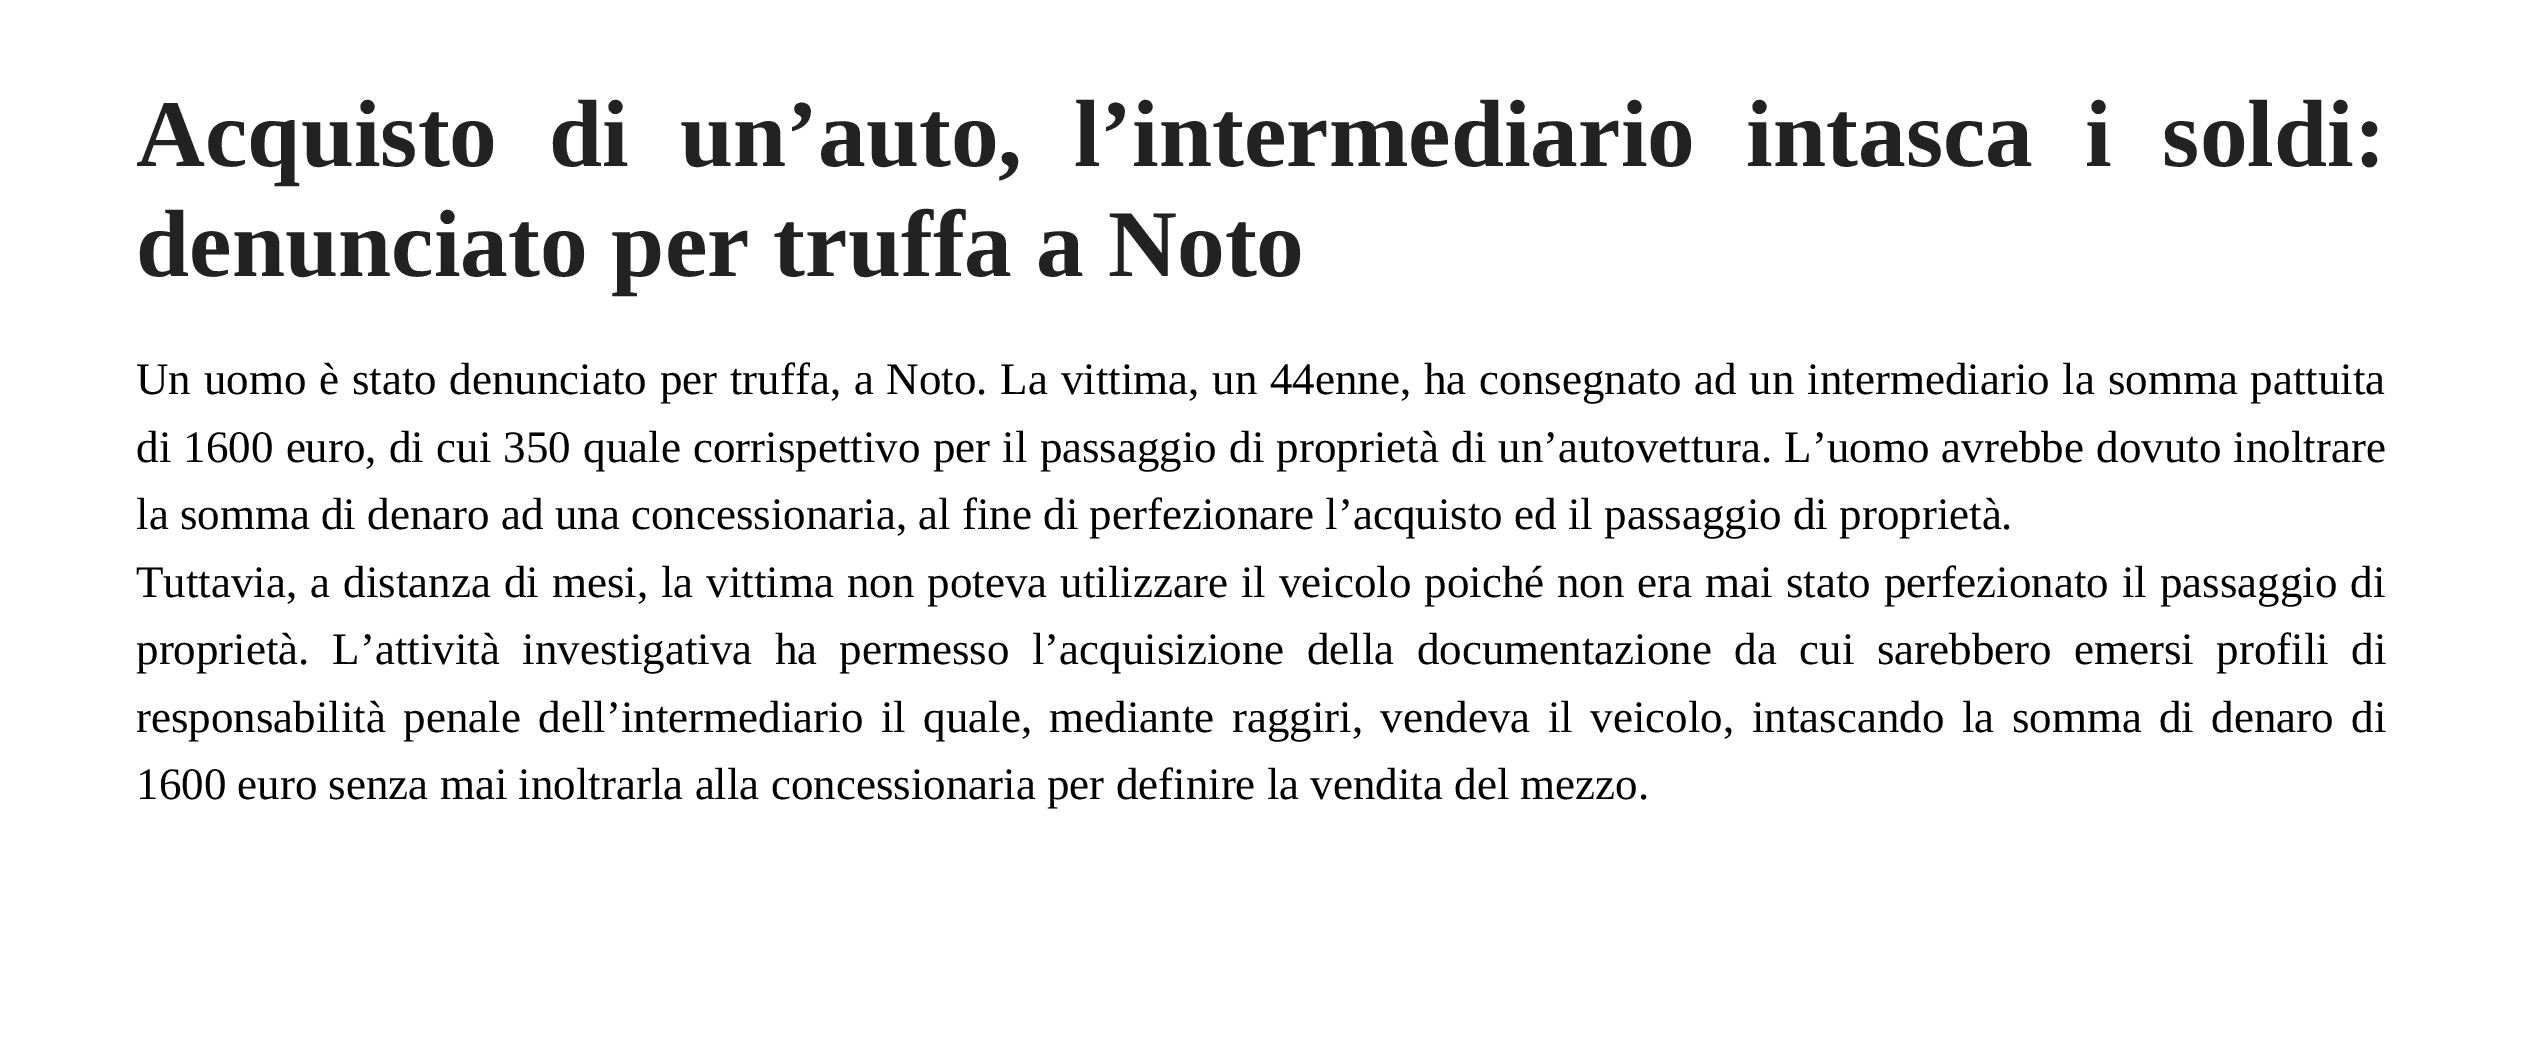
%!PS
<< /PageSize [2521 1041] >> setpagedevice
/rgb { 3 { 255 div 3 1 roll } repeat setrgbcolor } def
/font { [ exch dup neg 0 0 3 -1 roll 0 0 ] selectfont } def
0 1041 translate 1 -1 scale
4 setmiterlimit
255 255 255 rgb
0 0 2521 1041 rectfill
/LiberationSerif-Bold 95.6 font
34 34 34 rgb
136 166 moveto 27.5 0 32 (Acquisto di un’auto, l’intermediario intasca i soldi:) widthshow
136 276 moveto (denunciato per truffa a Noto) show
/LiberationSerif-Regular 45 font
0 0 0 rgb
136 394 moveto 1.5 0 32 (Un uomo è stato denunciato per truffa, a Noto. La vittima, un 44enne, ha consegnato ad un intermediario la somma pattuita) widthshow
136 462 moveto 1 0 32 (di 1600 euro, di cui 350 quale corrispettivo per il passaggio di proprietà di un’autovettura. L’uomo avrebbe dovuto inoltrare) widthshow
136 529 moveto (la somma di denaro ad una concessionaria, al fine di perfezionare l’acquisto ed il passaggio di proprietà.) show
136 597 moveto 1.75 0 32 (Tuttavia, a distanza di mesi, la vittima non poteva utilizzare il veicolo poiché non era mai stato perfezionato il passaggio di) widthshow
136 664 moveto 11.25 0 32 (proprietà. L’attività investigativa ha permesso l’acquisizione della documentazione da cui sarebbero emersi profili di) widthshow
136 732 moveto 6.25 0 32 (responsabilità penale dell’intermediario il quale, mediante raggiri, vendeva il veicolo, intascando la somma di denaro di) widthshow
136 799 moveto (1600 euro senza mai inoltrarla alla concessionaria per definire la vendita del mezzo.) show
showpage
